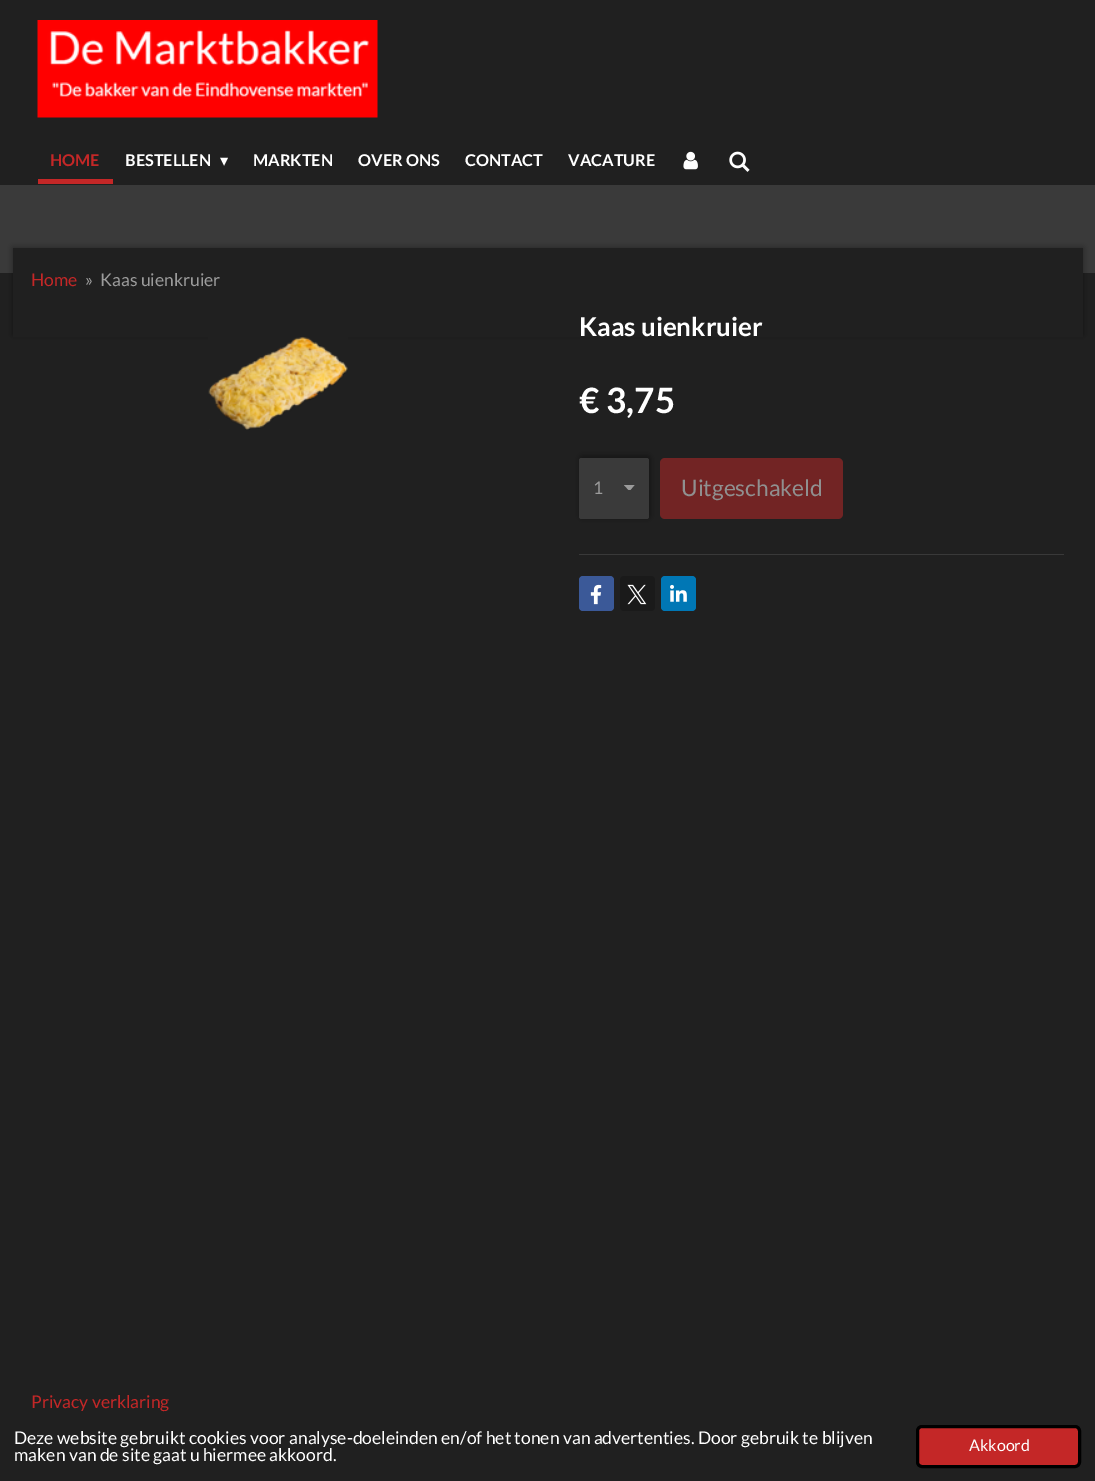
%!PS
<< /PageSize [1095 1481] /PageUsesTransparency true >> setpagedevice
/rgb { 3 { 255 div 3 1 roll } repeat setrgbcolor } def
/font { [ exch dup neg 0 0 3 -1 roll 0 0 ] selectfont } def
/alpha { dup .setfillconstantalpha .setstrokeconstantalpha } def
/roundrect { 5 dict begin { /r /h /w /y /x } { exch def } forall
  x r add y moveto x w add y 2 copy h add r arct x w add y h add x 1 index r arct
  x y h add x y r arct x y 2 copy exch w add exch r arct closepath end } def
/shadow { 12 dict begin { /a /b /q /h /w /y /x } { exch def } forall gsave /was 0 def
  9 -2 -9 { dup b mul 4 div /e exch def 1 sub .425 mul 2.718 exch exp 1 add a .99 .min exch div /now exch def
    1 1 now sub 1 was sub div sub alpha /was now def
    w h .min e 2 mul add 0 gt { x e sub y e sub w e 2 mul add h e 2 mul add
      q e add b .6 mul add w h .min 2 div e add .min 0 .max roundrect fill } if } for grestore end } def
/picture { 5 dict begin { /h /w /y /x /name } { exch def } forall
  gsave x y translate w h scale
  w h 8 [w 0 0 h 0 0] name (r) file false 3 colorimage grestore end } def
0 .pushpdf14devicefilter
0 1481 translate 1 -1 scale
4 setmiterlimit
32 32 32 rgb
0 0 1095 1481 rectfill
(img/1.rgb) 37 20 341 98 picture
196 39 39 rgb
38 179 75 5 rectfill
(img/2.rgb) 683 151 15 19 picture
(img/3.rgb) 729 151 21 21 picture
58 58 58 rgb
0 185 1095 88 rectfill
0 0 0 rgb
13 248 1070 87 0 3 0.4 shadow
32 32 32 rgb
13 248 1070 89 rectfill
(img/4.rgb) 208 336 140 94 picture
0 0 0 rgb
580 456 70 62 2.5 3 0.35 shadow
58 58 58 rgb
579 458 70 61 2.5 roundrect fill
gsave
624 485 11 5 rectclip
155 155 155 rgb
629.5 491 moveto 624 485 lineto 634.5 485 lineto closepath fill
grestore
114 36 36 rgb
660 458 183 61 5 roundrect fill
57 57 57 rgb
579 554 485 1 rectfill
59 89 152 rgb
579 576 35 35 4 roundrect fill
(img/5.rgb) 590 584 12 21 picture
26 26 26 rgb
620 576 35 35 4 roundrect fill
(img/6.rgb) 627 584 20 21 picture
0 119 181 rgb
661 576 35 35 4 roundrect fill
(img/7.rgb) 670 584 17 18 picture
196 39 39 rgb
917.5 1426.5 162 40 4.5 roundrect gsave fill grestore
0 0 0 rgb
3 setlinewidth
stroke
/Lato-Bold 16.25 font
196 39 39 rgb
50 166 moveto (HOME) show
255 255 255 rgb
125 166 moveto (BESTELLEN) show
/DejaVuSans-Regular 16.25 font
220 166 moveto (▾) show
/Lato-Bold 16.25 font
[
  [(MARKTEN) 253 166]
  [(OVER ONS) 358 166]
  [(CONTACT) 465 166]
  [(VACATURE) 568 166]
] { aload pop moveto show } forall
/Lato-Regular 17.5 font
196 39 39 rgb
31 286 moveto (Home) show
155 155 155 rgb
85 286 moveto (») show
100 286 moveto (Kaas uienkruier) show
/Lato-Bold 26 font
255 255 255 rgb
579 336 moveto (Kaas uienkruier) show
/Lato-Bold 35 font
579 413 moveto (€ 3,75) show
/Lato-Regular 17.5 font
155 155 155 rgb
593 494 moveto (1) show
/Lato-Regular 22.75 font
144 144 144 rgb
681 496 moveto (Uitgeschakeld) show
/Lato-Regular 17.5 font
196 39 39 rgb
31 1408 moveto (Privacy verklaring) show
34 34 34 rgb
164 1411 2 1 rectfill
255 255 255 rgb
14 1444 moveto (Deze website gebruikt cookies voor analyse-doeleinden en/of het tonen van advertenties. Door gebruik te blijven) show
14 1461 moveto (maken van de site gaat u hiermee akkoord.) show
/Lato-Regular 16 font
969 1451 moveto (Akkoord) show
.poppdf14devicefilter showpage
